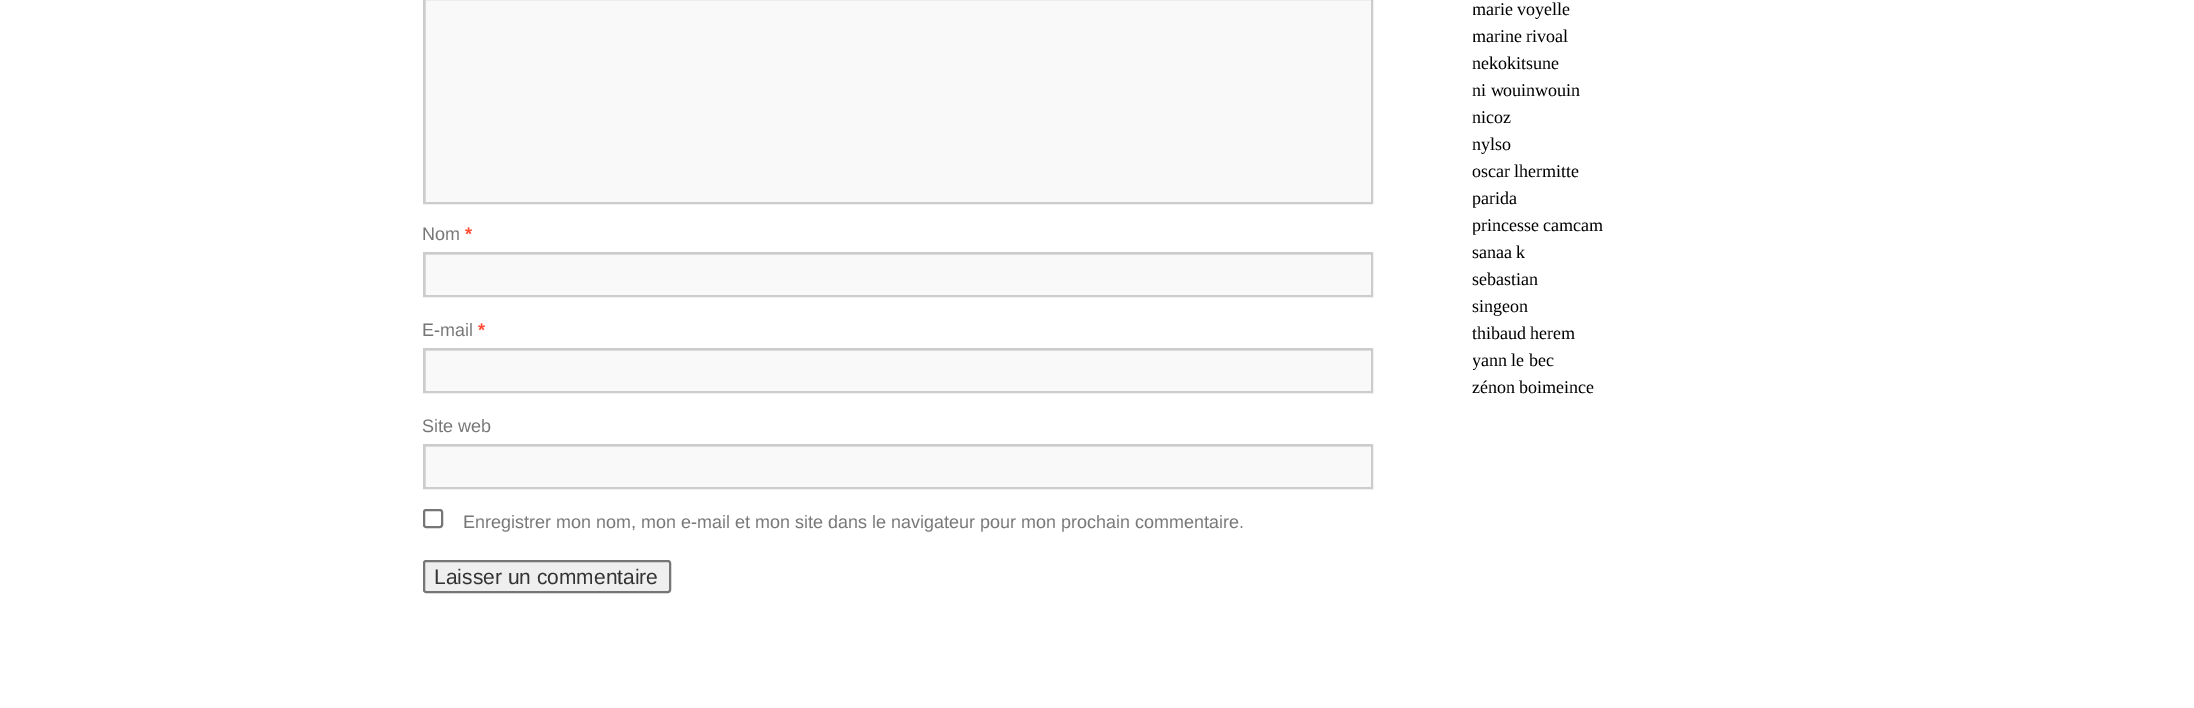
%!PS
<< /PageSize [2194 708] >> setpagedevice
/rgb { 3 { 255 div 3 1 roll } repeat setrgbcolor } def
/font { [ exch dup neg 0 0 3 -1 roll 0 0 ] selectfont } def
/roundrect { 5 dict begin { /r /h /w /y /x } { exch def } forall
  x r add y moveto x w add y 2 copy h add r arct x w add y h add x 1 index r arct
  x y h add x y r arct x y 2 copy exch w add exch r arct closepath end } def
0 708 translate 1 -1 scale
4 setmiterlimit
255 255 255 rgb
0 0 2194 708 rectfill
249 249 249 rgb
426 0 945 202 rectfill
gsave
425 0 946 203 rectclip
224 224 224 rgb
276 -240 moveto 1520 -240 lineto 1520 351 lineto 276 351 lineto closepath 426 -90 moveto 1372 -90 lineto 1372 204 lineto 426 204 lineto closepath eofill
grestore
204 204 204 rgb
2 setlinewidth
424 -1 948 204 rectstroke
249 249 249 rgb
426 255 945 40 rectfill
gsave
425 254 946 42 rectclip
224 224 224 rgb
276 105 moveto 1520 105 lineto 1520 444 lineto 276 444 lineto closepath 426 255 moveto 1372 255 lineto 1372 297 lineto 426 297 lineto closepath eofill
grestore
204 204 204 rgb
424 253 948 43 rectstroke
249 249 249 rgb
426 351 945 40 rectfill
gsave
425 350 946 42 rectclip
224 224 224 rgb
276 201 moveto 1520 201 lineto 1520 540 lineto 276 540 lineto closepath 426 351 moveto 1372 351 lineto 1372 393 lineto 426 393 lineto closepath eofill
grestore
204 204 204 rgb
424 349 948 43 rectstroke
249 249 249 rgb
426 447 945 40 rectfill
gsave
425 446 946 42 rectclip
224 224 224 rgb
276 297 moveto 1520 297 lineto 1520 636 lineto 276 636 lineto closepath 426 447 moveto 1372 447 lineto 1372 489 lineto 426 489 lineto closepath eofill
grestore
204 204 204 rgb
424 445 948 43 rectstroke
118 118 118 rgb
424 510 18 17 2 roundrect stroke
239 239 239 rgb
424 561 246 31 2 roundrect gsave fill grestore
118 118 118 rgb
stroke
/LiberationSans-Regular 18 font
119 119 119 rgb
422 240 moveto (Nom) show
/LiberationSans-Bold 18 font
255 75 51 rgb
465 240 moveto (*) show
/LiberationSans-Regular 18 font
119 119 119 rgb
422 336 moveto (E-mail) show
/LiberationSans-Bold 18 font
255 75 51 rgb
478 336 moveto (*) show
/LiberationSans-Regular 18 font
119 119 119 rgb
422 432 moveto (Site web) show
463 528 moveto (Enregistrer mon nom, mon e-mail et mon site dans le navigateur pour mon prochain commentaire.) show
/LiberationSans-Regular 21 font
51 51 51 rgb
434 584 moveto (Laisser un commentaire) show
gsave
1473 0 330 428 rectclip
/LiberationSerif-Regular 18 font
0 0 0 rgb
1472 15 moveto (marie voyelle) show
1472 42 moveto (marine rivoal) show
grestore
/LiberationSerif-Regular 18 font
0 0 0 rgb
[
  [(nekokitsune) 1472 69]
  [(ni wouinwouin) 1472 96]
  [(nicoz) 1472 123]
  [(nylso) 1472 150]
  [(oscar lhermitte) 1472 177]
] { aload pop moveto show } forall
gsave
1473 0 330 428 rectclip
1472 204 moveto (parida) show
1472 231 moveto (princesse camcam) show
grestore
[
  [(sanaa k) 1472 258]
  [(sebastian) 1472 285]
  [(singeon) 1472 312]
  [(thibaud herem) 1472 339]
] { aload pop moveto show } forall
gsave
1473 0 330 428 rectclip
1472 366 moveto (yann le bec) show
grestore
1472 393 moveto (zénon boimeince) show
showpage
